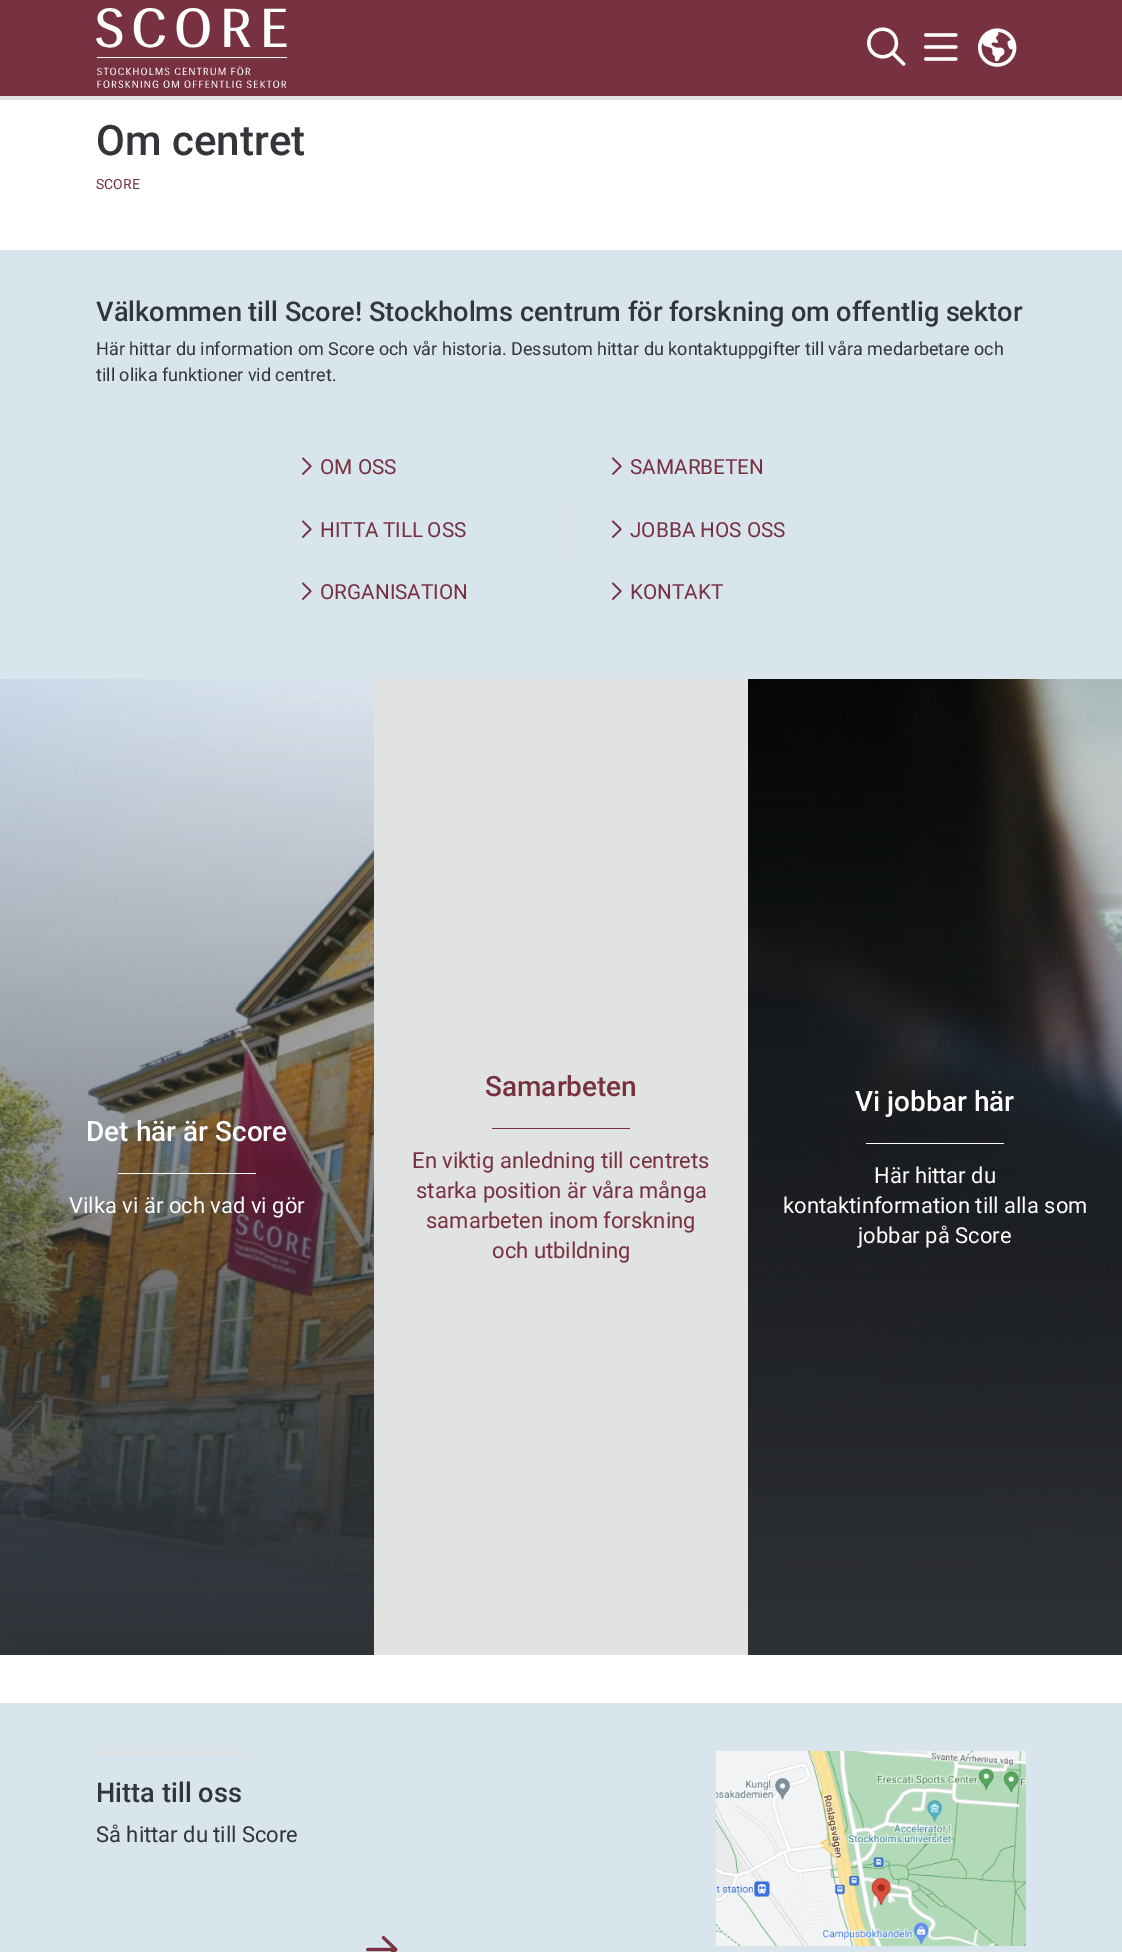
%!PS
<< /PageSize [1122 1952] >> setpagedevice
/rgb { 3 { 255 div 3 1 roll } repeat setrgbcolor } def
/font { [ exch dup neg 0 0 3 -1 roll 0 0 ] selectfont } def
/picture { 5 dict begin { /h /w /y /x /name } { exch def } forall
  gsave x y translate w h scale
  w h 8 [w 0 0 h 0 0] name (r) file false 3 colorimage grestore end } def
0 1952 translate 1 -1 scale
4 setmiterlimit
255 255 255 rgb
0 0 1122 1952 rectfill
119 49 65 rgb
0 0 1122 96 rectfill
225 226 226 rgb
0 96 1122 4 rectfill
(img/1.rgb) 96 8 191 80 picture
(img/2.rgb) 867 27 39 39 picture
(img/3.rgb) 924 33 34 28 picture
(img/4.rgb) 978 28 39 39 picture
217 229 237 rgb
0 250 1122 429 rectfill
(img/5.rgb) 560 482 1 103 picture
(img/6.rgb) 302 457 10 18 picture
(img/6.rgb) 302 520 10 18 picture
(img/6.rgb) 302 582 10 18 picture
(img/6.rgb) 612 457 10 18 picture
(img/6.rgb) 612 520 10 18 picture
(img/6.rgb) 612 582 10 18 picture
(img/7.rgb) 0 679 374 976 picture
[
  [118 1173 138 1 255 255 255]
  [374 679 374 976 225 226 226]
  [492 1128 138 1 119 49 65]
] { aload pop rgb rectfill } forall
(img/8.rgb) 748 679 374 976 picture
[
  [866 1143 138 1 255 255 255]
  [0 1703 1122 249 217 229 237]
  [96 1751 150 4 225 226 226]
] { aload pop rgb rectfill } forall
(img/9.rgb) 366 1936 32 16 picture
(img/10.rgb) 716 1751 310 195 picture
/Roboto-Medium 42 font
50 54 59 rgb
96 155 moveto (Om centret) show
/Roboto-Regular 14 font
119 49 65 rgb
96 189 moveto (SCORE) show
/Roboto-Medium 27.2 font
50 54 59 rgb
96 321 moveto -0.25 0 32 (Välkommen till Score! Stockholms centrum för forskning om offentlig sektor) widthshow
/Roboto-Regular 18 font
96 355 moveto (Här hittar du information om Score och vår historia. Dessutom hittar du kontaktuppgifter till våra medarbetare och) show
96 381 moveto (till olika funktioner vid centret.) show
/Roboto-Regular 20.75 font
119 49 65 rgb
320 474 moveto (OM OSS) show
320 537 moveto -1 0 32 (HITTA TILL OSS) widthshow
[
  [(ORGANISATION) 320 599]
  [(SAMARBETEN) 630 474]
  [(JOBBA HOS OSS) 630 537]
  [(KONTAKT) 630 599]
] { aload pop moveto show } forall
/Roboto-Medium 28 font
255 255 255 rgb
86 1141 moveto (Det här är Score) show
/Roboto-Regular 22 font
69 1213 moveto (Vilka vi är och vad vi gör) show
/Roboto-Medium 28 font
119 49 65 rgb
485 1096 moveto (Samarbeten) show
/Roboto-Regular 22 font
[
  [(En viktig anledning till centrets) 412 1168]
  [(starka position är våra många) 416 1198]
  [(samarbeten inom forskning) 426 1228]
  [(och utbildning) 492 1258]
] { aload pop moveto show } forall
/Roboto-Medium 28 font
255 255 255 rgb
855 1111 moveto (Vi jobbar här) show
/Roboto-Regular 22 font
[
  [(Här hittar du) 874 1183]
  [(kontaktinformation till alla som) 783 1213]
  [(jobbar på Score) 858 1243]
] { aload pop moveto show } forall
/Roboto-Medium 27.2 font
50 54 59 rgb
96 1802 moveto (Hitta till oss) show
/Roboto-Regular 22 font
96 1842 moveto (Så hittar du till Score) show
showpage
